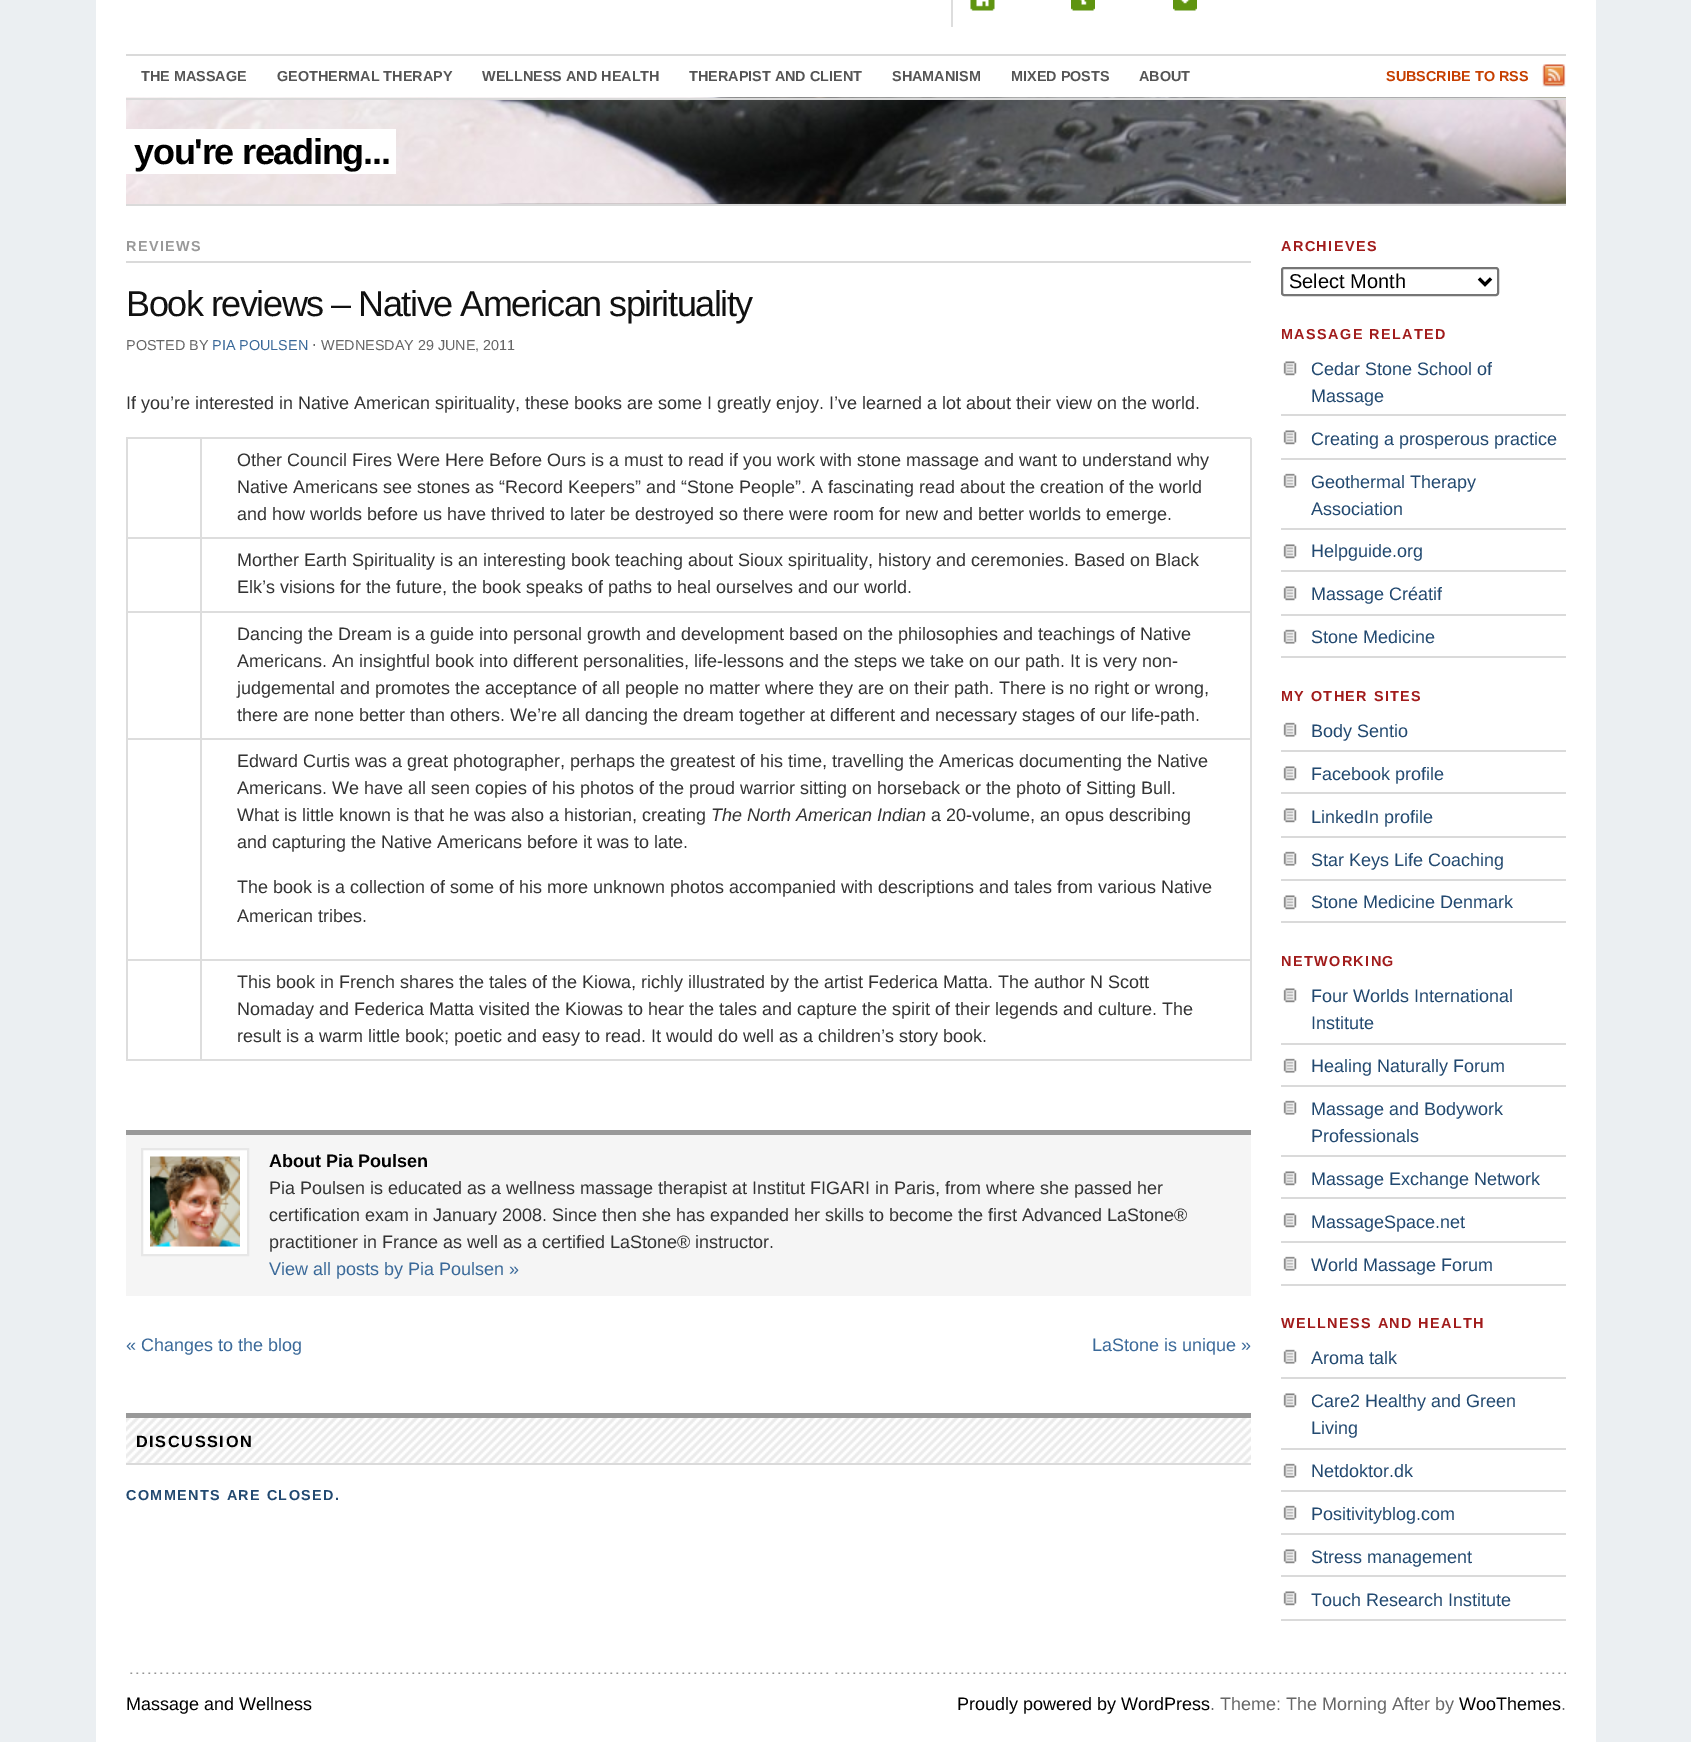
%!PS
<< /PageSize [1691 1742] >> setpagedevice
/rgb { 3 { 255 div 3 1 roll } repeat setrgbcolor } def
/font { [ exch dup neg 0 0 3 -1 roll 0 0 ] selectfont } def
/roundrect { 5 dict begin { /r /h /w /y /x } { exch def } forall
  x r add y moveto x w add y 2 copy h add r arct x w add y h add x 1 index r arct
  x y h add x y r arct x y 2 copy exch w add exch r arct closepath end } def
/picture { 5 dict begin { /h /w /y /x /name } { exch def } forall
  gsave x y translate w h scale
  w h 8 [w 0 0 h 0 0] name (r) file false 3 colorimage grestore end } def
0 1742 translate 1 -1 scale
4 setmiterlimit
235 239 242 rgb
0 0 1691 1742 rectfill
255 255 255 rgb
96 0 1500 1742 rectfill
221 221 221 rgb
951 0 2 27 rectfill
(img/1.rgb) 970 0 25 11 picture
(img/2.rgb) 1071 0 24 11 picture
(img/3.rgb) 1173 0 24 11 picture
218 218 218 rgb
126 54 1440 2 rectfill
(img/4.rgb) 1542 64 24 23 picture
(img/5.rgb) 126 97 1440 107 picture
[
  [126 98 1440 2 218 218 218]
  [126 204 1440 2 218 218 218]
  [126 129 270 45 255 255 255]
  [126 261 1125 2 218 218 218]
  [126 437 1125 2 221 221 221]
  [126 437 2 624 221 221 221]
  [200 438 2 174 221 221 221]
  [128 537 73 2 221 221 221]
  [1250 438 2 174 221 221 221]
  [201 537 1050 2 221 221 221]
  [128 611 1123 2 221 221 221]
  [200 612 2 348 221 221 221]
  [128 738 73 2 221 221 221]
  [1250 612 2 348 221 221 221]
  [201 738 1050 2 221 221 221]
  [128 959 1123 2 221 221 221]
  [200 960 2 101 221 221 221]
  [128 1059 73 2 221 221 221]
  [1250 960 2 101 221 221 221]
  [201 1059 1050 2 221 221 221]
  [126 1135 1125 161 245 245 245]
  [126 1130 1125 5 153 153 153]
] { aload pop rgb rectfill } forall
255 255 255 rgb
142 1149 moveto 248 1149 lineto 248 1255 lineto 142 1255 lineto closepath gsave fill grestore
231 231 231 rgb
2 setlinewidth
stroke
(img/6.rgb) 150 1156 90 91 picture
(img/7.rgb) 126 1418 1125 45 picture
153 153 153 rgb
126 1413 1125 5 rectfill
218 218 218 rgb
126 1463 1125 2 rectfill
118 118 118 rgb
1282 268 216 27 2 roundrect stroke
0 0 0 rgb
3 setlinewidth
1479 278.5 moveto 1485 284.5 lineto 1491 278.5 lineto stroke
(img/8.rgb) 1283 361 14 15 picture
218 218 218 rgb
1281 414 285 2 rectfill
(img/8.rgb) 1283 430 14 15 picture
1281 458 285 2 rectfill
(img/9.rgb) 1283 473 14 15 picture
1281 528 285 2 rectfill
(img/8.rgb) 1283 544 14 15 picture
1281 570 285 2 rectfill
(img/8.rgb) 1283 586 14 15 picture
1281 614 285 2 rectfill
(img/9.rgb) 1283 629 14 15 picture
1281 656 285 2 rectfill
(img/9.rgb) 1283 722 14 15 picture
1281 750 285 2 rectfill
(img/8.rgb) 1283 766 14 15 picture
1281 792 285 2 rectfill
(img/8.rgb) 1283 808 14 15 picture
1281 836 285 2 rectfill
(img/9.rgb) 1283 851 14 15 picture
1281 879 285 2 rectfill
(img/8.rgb) 1283 895 14 15 picture
1281 921 285 2 rectfill
(img/8.rgb) 1283 988 14 15 picture
1281 1043 285 2 rectfill
(img/9.rgb) 1283 1058 14 15 picture
1281 1085 285 2 rectfill
(img/9.rgb) 1283 1100 14 15 picture
1281 1155 285 2 rectfill
(img/8.rgb) 1283 1171 14 15 picture
1281 1197 285 2 rectfill
(img/8.rgb) 1283 1213 14 15 picture
1281 1241 285 2 rectfill
(img/9.rgb) 1283 1256 14 15 picture
1281 1284 285 2 rectfill
(img/9.rgb) 1283 1349 14 15 picture
1281 1377 285 2 rectfill
(img/8.rgb) 1283 1393 14 15 picture
1281 1448 285 2 rectfill
(img/9.rgb) 1283 1463 14 15 picture
1281 1490 285 2 rectfill
(img/9.rgb) 1283 1505 14 15 picture
1281 1533 285 2 rectfill
(img/8.rgb) 1283 1549 14 15 picture
1281 1575 285 2 rectfill
(img/8.rgb) 1283 1591 14 15 picture
1281 1619 285 2 rectfill
(img/10.rgb) 130 1672 1436 2 picture
/LiberationSans-Bold 14.4 font
85 85 85 rgb
[
  [(THE MASSAGE) 141 81]
  [(GEOTHERMAL THERAPY) 277 81]
  [(WELLNESS AND HEALTH) 482 81]
  [(THERAPIST AND CLIENT) 689 81]
  [(SHAMANISM) 892 81]
  [(MIXED POSTS) 1011 81]
  [(ABOUT) 1139 81]
] { aload pop moveto show } forall
198 63 0 rgb
1386 81 moveto (SUBSCRIBE TO RSS) show
/LiberationSans-Bold 36 font
0 0 0 rgb
134 164 moveto -1.25 0 (you're reading...) ashow
/LiberationSans-Bold 14.4 font
153 153 153 rgb
126 251 moveto 1.4 0 (REVIEWS) ashow
/LiberationSans-Regular 36 font
17 17 17 rgb
126 316 moveto -1.45 0 (Book reviews – Native American spirituality) ashow
/LiberationSans-Regular 14.4 font
102 102 102 rgb
126 350 moveto (POSTED BY) show
58 105 153 rgb
212 350 moveto (PIA POULSEN) show
/DejaVuSans-Regular 14.4 font
102 102 102 rgb
312 350 moveto (⋅) show
/LiberationSans-Regular 14.4 font
321 350 moveto (WEDNESDAY 29 JUNE, 2011) show
/LiberationSans-Regular 18 font
51 51 51 rgb
[
  [(If you’re interested in Native American spirituality, these books are some I greatly enjoy. I’ve learned a lot about their view on the world.) 126 409]
  [(Other Council Fires Were Here Before Ours is a must to read if you work with stone massage and want to understand why) 237 466]
  [(Native Americans see stones as “Record Keepers” and “Stone People”. A fascinating read about the creation of the world) 237 493]
  [(and how worlds before us have thrived to later be destroyed so there were room for new and better worlds to emerge.) 237 520]
  [(Morther Earth Spirituality is an interesting book teaching about Sioux spirituality, history and ceremonies. Based on Black) 237 566]
  [(Elk’s visions for the future, the book speaks of paths to heal ourselves and our world.) 237 593]
  [(Dancing the Dream is a guide into personal growth and development based on the philosophies and teachings of Native) 237 640]
  [(Americans. An insightful book into different personalities, life-lessons and the steps we take on our path. It is very non-) 237 667]
  [(judgemental and promotes the acceptance of all people no matter where they are on their path. There is no right or wrong,) 237 694]
  [(there are none better than others. We’re all dancing the dream together at different and necessary stages of our life-path.) 237 721]
  [(Edward Curtis was a great photographer, perhaps the greatest of his time, travelling the Americas documenting the Native) 237 767]
  [(Americans. We have all seen copies of his photos of the proud warrior sitting on horseback or the photo of Sitting Bull.) 237 794]
  [(What is little known is that he was also a historian, creating) 237 821]
] { aload pop moveto show } forall
/LiberationSans-Italic 18 font
711 821 moveto (The North American Indian) show
/LiberationSans-Regular 18 font
[
  [(a 20-volume, an opus describing) 931 821]
  [(and capturing the Native Americans before it was to late.) 237 848]
  [(The book is a collection of some of his more unknown photos accompanied with descriptions and tales from various Native) 237 893]
  [(American tribes.) 237 922]
  [(This book in French shares the tales of the Kiowa, richly illustrated by the artist Federica Matta. The author N Scott) 237 988]
  [(Nomaday and Federica Matta visited the Kiowas to hear the tales and capture the spirit of their legends and culture. The) 237 1015]
  [(result is a warm little book; poetic and easy to read. It would do well as a children’s story book.) 237 1042]
] { aload pop moveto show } forall
/LiberationSans-Bold 18 font
0 0 0 rgb
269 1167 moveto (About Pia Poulsen) show
/LiberationSans-Regular 18 font
51 51 51 rgb
[
  [(Pia Poulsen is educated as a wellness massage therapist at Institut FIGARI in Paris, from where she passed her) 269 1194]
  [(certification exam in January 2008. Since then she has expanded her skills to become the first Advanced LaStone®) 269 1221]
  [(practitioner in France as well as a certified LaStone® instructor.) 269 1248]
] { aload pop moveto show } forall
58 105 153 rgb
[
  [(View all posts by Pia Poulsen ») 269 1275]
  [(« Changes to the blog) 126 1351]
  [(LaStone is unique ») 1092 1351]
] { aload pop moveto show } forall
/LiberationSans-Bold 16.25 font
0 0 0 rgb
136 1447 moveto 1.6 0 (DISCUSSION) ashow
/LiberationSans-Bold 14.4 font
34 73 112 rgb
126 1500 moveto 1.4 0 (COMMENTS ARE CLOSED.) ashow
161 27 27 rgb
1281 251 moveto 1.4 0 (ARCHIEVES) ashow
/LiberationSans-Regular 20 font
0 0 0 rgb
1289 288 moveto (Select Month) show
/LiberationSans-Bold 14.4 font
161 27 27 rgb
1281 339 moveto 1.4 0 (MASSAGE RELATED) ashow
/LiberationSans-Regular 18 font
34 73 112 rgb
[
  [(Cedar Stone School of) 1311 375]
  [(Massage) 1311 402]
  [(Creating a prosperous practice) 1311 445]
  [(Geothermal Therapy) 1311 488]
  [(Association) 1311 515]
  [(Helpguide.org) 1311 557]
  [(Massage Créatif) 1311 600]
  [(Stone Medicine) 1311 643]
] { aload pop moveto show } forall
/LiberationSans-Bold 14.4 font
161 27 27 rgb
1281 701 moveto 1.4 0 (MY OTHER SITES) ashow
/LiberationSans-Regular 18 font
34 73 112 rgb
[
  [(Body Sentio) 1311 737]
  [(Facebook profile) 1311 780]
  [(LinkedIn profile) 1311 823]
  [(Star Keys Life Coaching) 1311 866]
  [(Stone Medicine Denmark) 1311 908]
] { aload pop moveto show } forall
/LiberationSans-Bold 14.4 font
161 27 27 rgb
1281 966 moveto 1.4 0 (NETWORKING) ashow
/LiberationSans-Regular 18 font
34 73 112 rgb
[
  [(Four Worlds International) 1311 1002]
  [(Institute) 1311 1029]
  [(Healing Naturally Forum) 1311 1072]
  [(Massage and Bodywork) 1311 1115]
  [(Professionals) 1311 1142]
  [(Massage Exchange Network) 1311 1185]
  [(MassageSpace.net) 1311 1228]
  [(World Massage Forum) 1311 1271]
] { aload pop moveto show } forall
/LiberationSans-Bold 14.4 font
161 27 27 rgb
1281 1328 moveto 1.4 0 (WELLNESS AND HEALTH) ashow
/LiberationSans-Regular 18 font
34 73 112 rgb
[
  [(Aroma talk) 1311 1364]
  [(Care2 Healthy and Green) 1311 1407]
  [(Living) 1311 1434]
  [(Netdoktor.dk) 1311 1477]
  [(Positivityblog.com) 1311 1520]
  [(Stress management) 1311 1563]
  [(Touch Research Institute) 1311 1606]
] { aload pop moveto show } forall
0 0 0 rgb
126 1710 moveto (Massage and Wellness) show
957 1710 moveto (Proudly powered by WordPress) show
102 102 102 rgb
1210 1710 moveto (. Theme: The Morning After by) show
0 0 0 rgb
1459 1710 moveto (WooThemes) show
102 102 102 rgb
1561 1710 moveto (.) show
showpage
